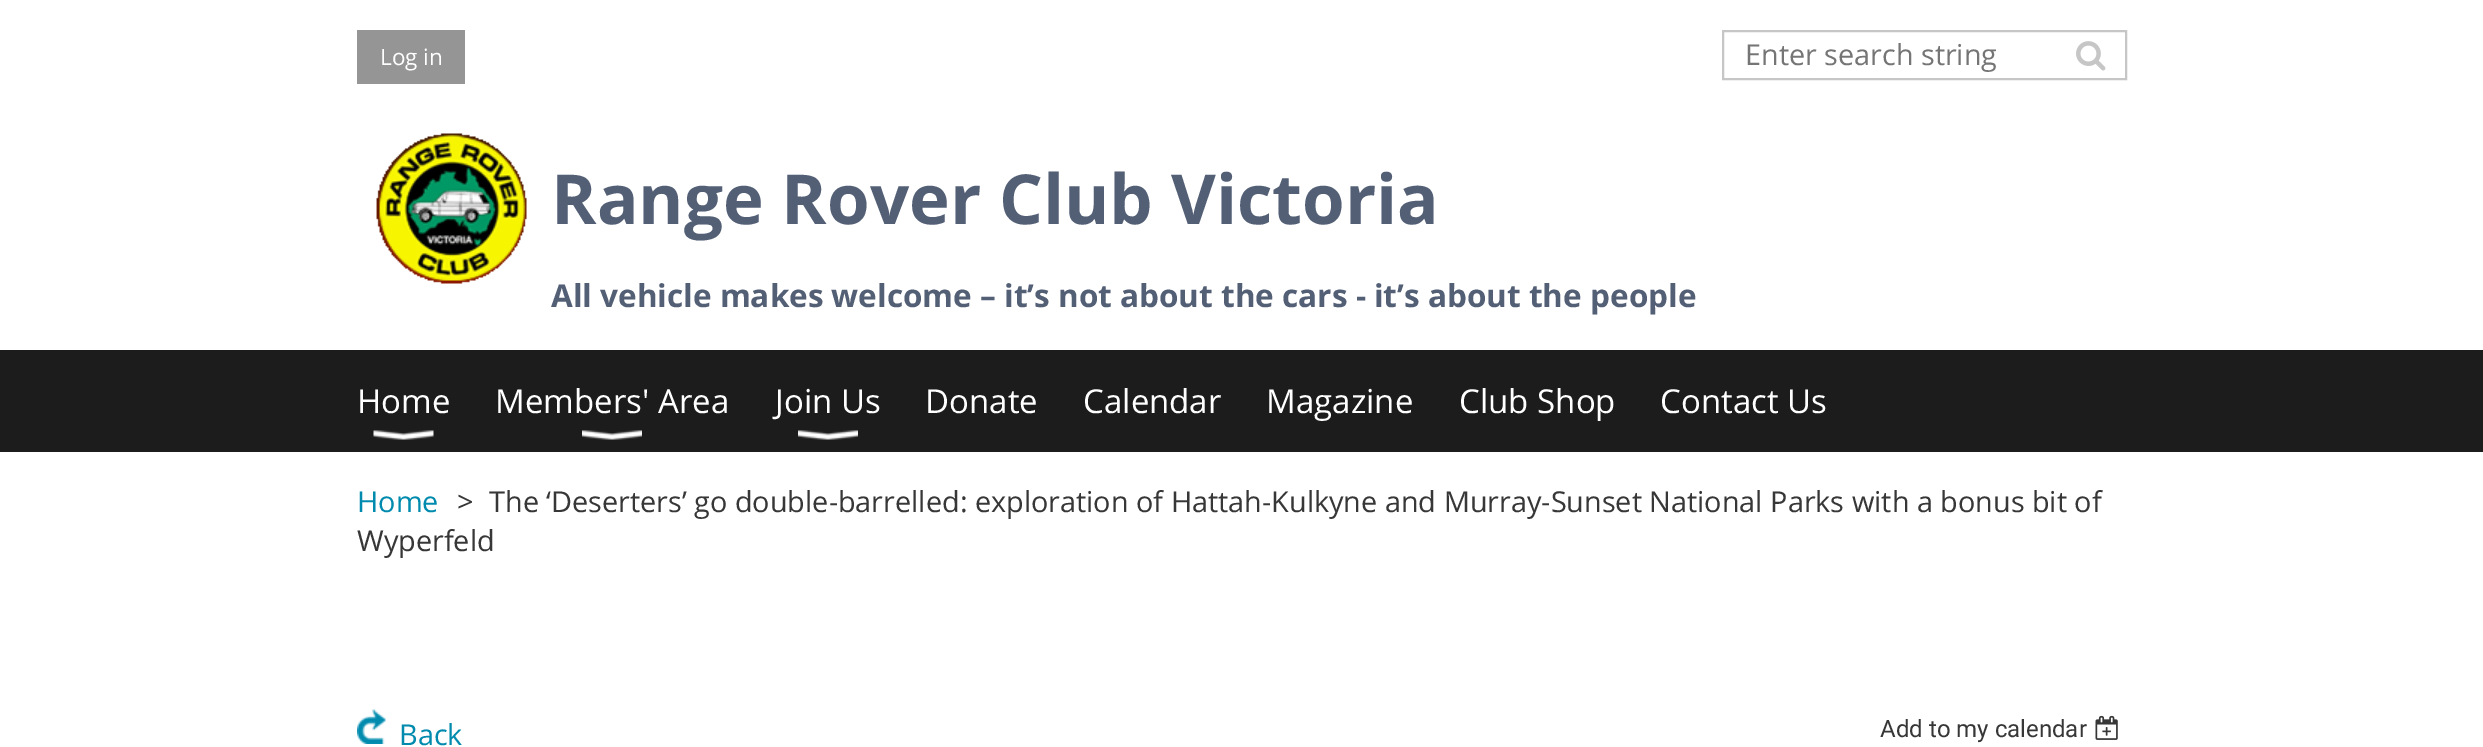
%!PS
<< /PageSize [2483 747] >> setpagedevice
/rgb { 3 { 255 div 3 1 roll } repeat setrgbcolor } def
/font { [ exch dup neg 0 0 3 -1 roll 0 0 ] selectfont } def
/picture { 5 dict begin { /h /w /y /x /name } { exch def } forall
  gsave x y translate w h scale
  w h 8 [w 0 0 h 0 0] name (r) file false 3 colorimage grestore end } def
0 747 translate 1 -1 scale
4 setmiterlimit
255 255 255 rgb
0 0 2483 747 rectfill
149 149 149 rgb
357 30 108 54 rectfill
198 198 198 rgb
2 setlinewidth
1723 31 403 48 rectstroke
(img/1.rgb) 2076 41 30 30 picture
(img/2.rgb) 376 133 151 151 picture
28 28 28 rgb
0 350 2483 102 rectfill
(img/3.rgb) 373 430 61 10 picture
(img/4.rgb) 582 430 60 10 picture
(img/5.rgb) 798 430 60 10 picture
(img/6.rgb) 357 709 29 35 picture
(img/7.rgb) 2095 715 23 25 picture
/OpenSans-Regular 22.5 font
255 255 255 rgb
380 65 moveto (Log in) show
/OpenSans-Regular 28.8 font
117 117 117 rgb
1745 65 moveto (Enter search string) show
/OpenSans-Bold 69 font
83 95 117 rgb
551 224 moveto (Range Rover Club Victoria) show
/OpenSans-Bold 31.5 font
551 307 moveto (All vehicle makes welcome – it’s not about the cars - it’s about the people) show
/OpenSans-Regular 33 font
255 255 255 rgb
[
  [(Home) 357 413]
  [(Members' Area) 495 413]
  [(Join Us) 775 413]
  [(Donate) 925 413]
  [(Calendar) 1083 413]
  [(Magazine) 1266 413]
  [(Club Shop) 1459 413]
  [(Contact Us) 1660 413]
] { aload pop moveto show } forall
/OpenSans-Regular 28.8 font
55 55 55 rgb
[
  [(>) 457 512]
  [(The ‘Deserters’ go double-barrelled: exploration of Hattah-Kulkyne and Murray-Sunset National Parks with a bonus bit of) 489 512]
  [(Wyperfeld) 357 551]
] { aload pop moveto show } forall
0 139 174 rgb
357 512 moveto (Home) show
399 745 moveto (Back) show
/Roboto-Regular 24 font
55 55 55 rgb
1880 737 moveto (Add to my calendar) show
showpage
